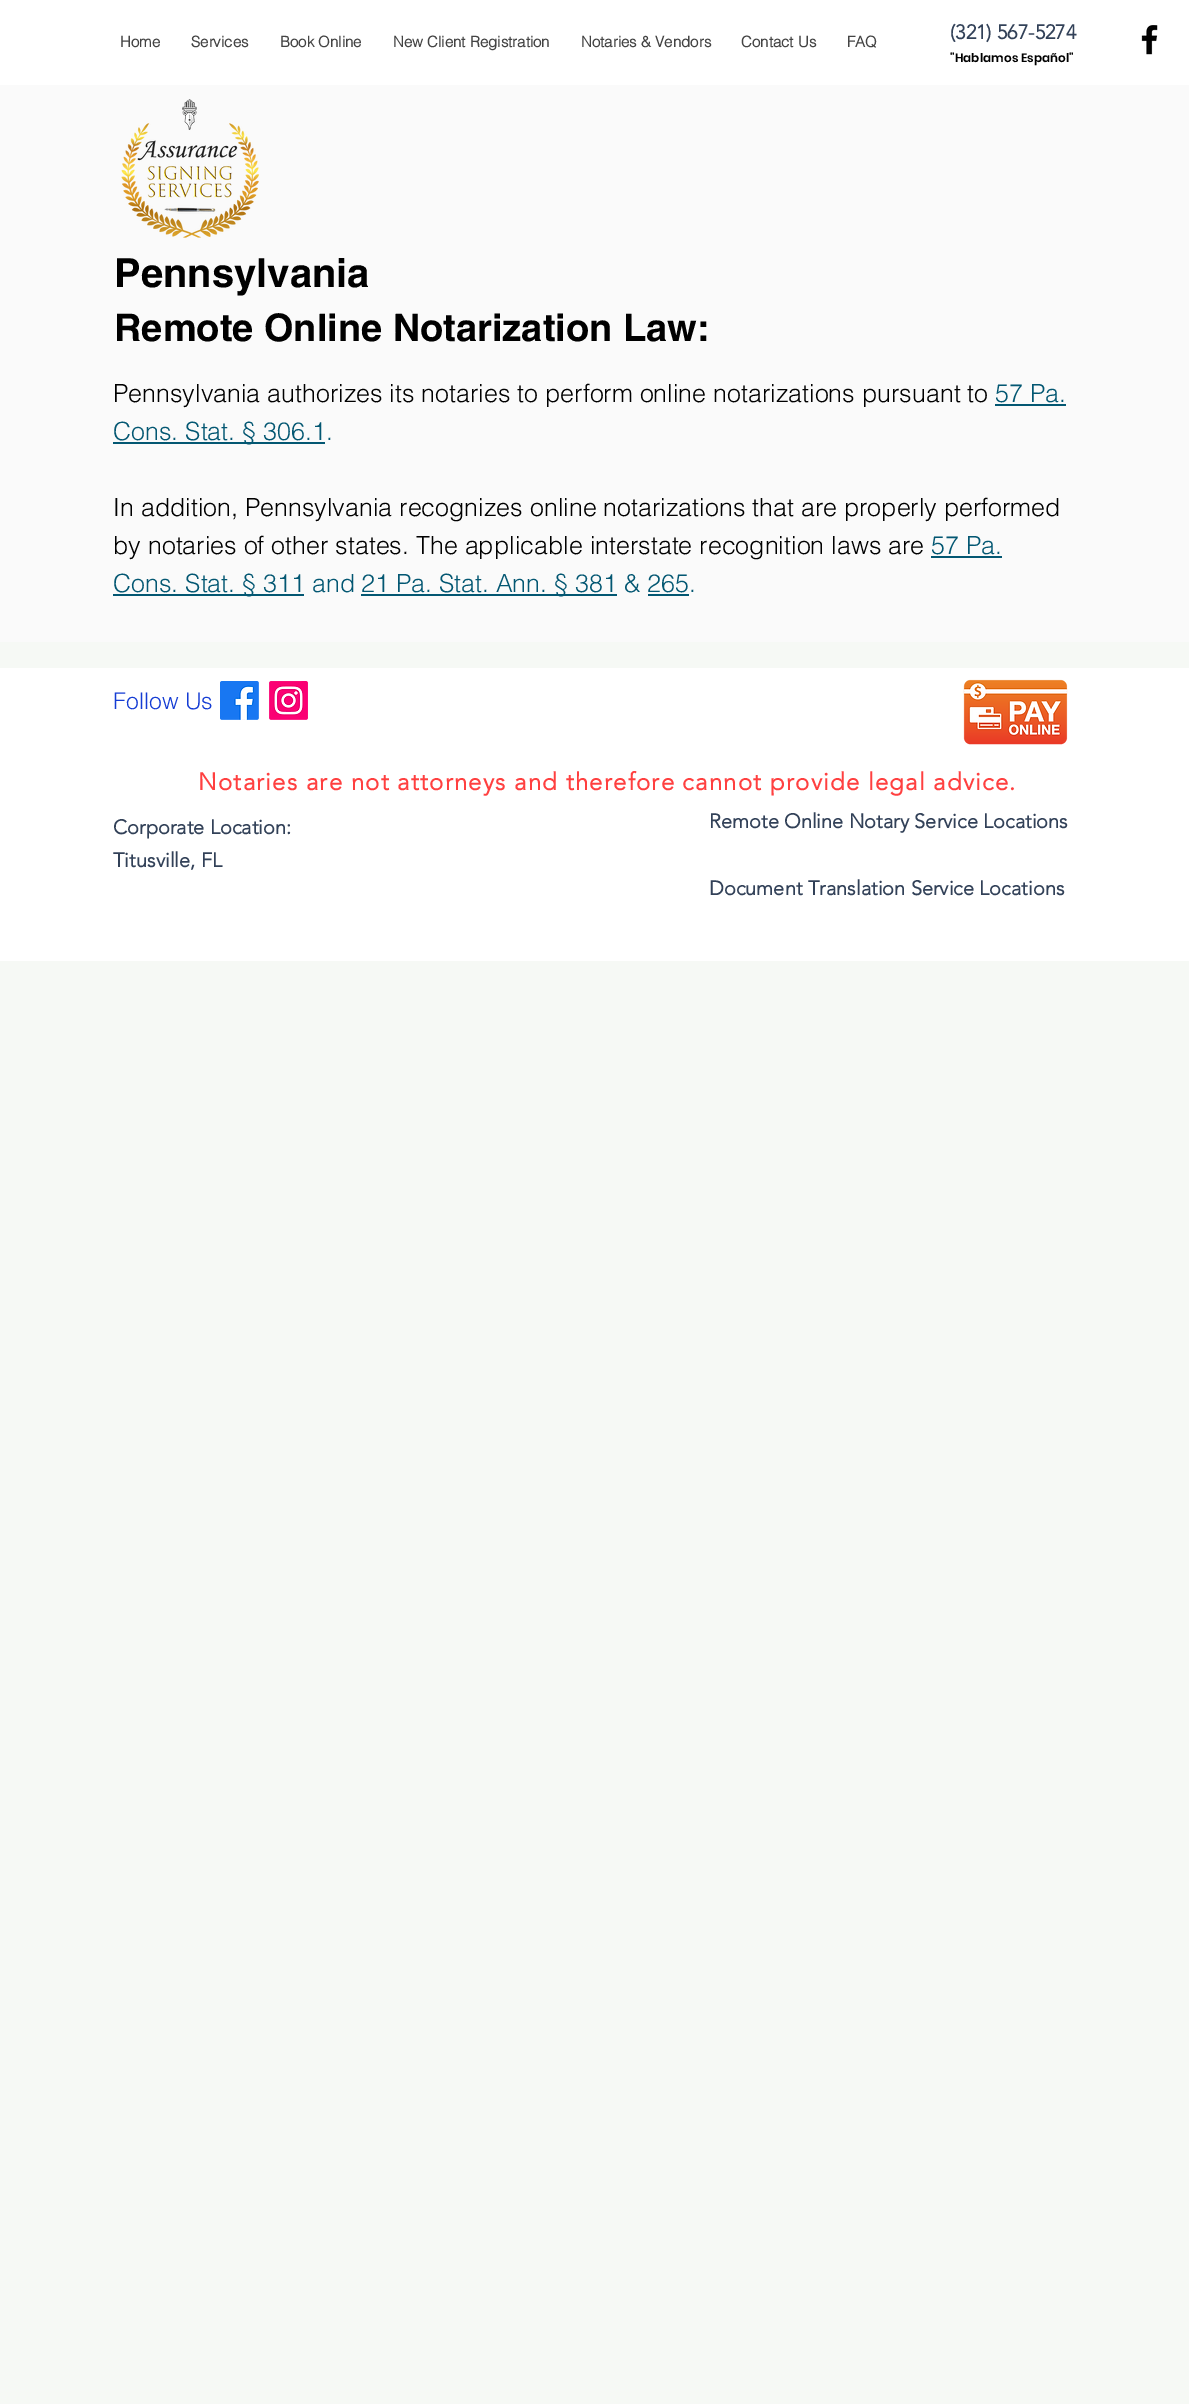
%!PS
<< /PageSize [1189 2404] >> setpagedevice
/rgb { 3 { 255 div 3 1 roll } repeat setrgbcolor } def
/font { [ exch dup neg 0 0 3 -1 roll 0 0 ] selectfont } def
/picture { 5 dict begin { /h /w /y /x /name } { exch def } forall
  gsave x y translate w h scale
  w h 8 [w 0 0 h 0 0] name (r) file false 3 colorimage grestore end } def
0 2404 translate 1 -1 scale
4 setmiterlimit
246 249 245 rgb
0 0 1189 2404 rectfill
255 255 255 rgb
0 0 1189 85 rectfill
(img/1.rgb) 1141 25 17 30 picture
250 250 250 rgb
0 85 1189 557 rectfill
(img/2.rgb) 121 99 139 139 picture
[
  [995 404 71 2 3 87 114]
  [113 442 212 2 3 87 114]
  [931 556 71 2 3 87 114]
  [113 594 191 2 3 87 114]
  [361 594 256 2 3 87 114]
  [648 594 41 2 3 87 114]
  [0 668 1189 293 255 255 255]
] { aload pop rgb rectfill } forall
(img/3.rgb) 220 681 39 39 picture
(img/4.rgb) 269 681 39 39 picture
(img/5.rgb) 963 679 105 66 picture
/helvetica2-Bold 15 font
68 68 68 rgb
[
  [(Home) 120 47]
  [(Services) 191 47]
  [(Book Online) 280 47]
  [(New Client Registration) 393 47]
  [(Notaries & Vendors) 581 47]
  [(Contact Us) 741 47]
  [(FAQ) 847 47]
] { aload pop moveto show } forall
/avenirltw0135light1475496-Bold 20 font
50 65 88 rgb
950 39 moveto (\(321\) 567-5274) show
/Poppins-SemiBold 12 font
0 0 0 rgb
950 62 moveto 0.1 0 ("Hablamos Español") ashow
/helvetica-Bold 40 font
114 287 moveto (Pennsylvania) show
/helvetica-Bold 38 font
114 341 moveto (Remote Online Notarization Law:) show
/helvetica-Light 25 font
113 402 moveto (Pennsylvania authorizes its notaries to perform online notarizations pursuant to) show
3 87 114 rgb
995 402 moveto (57 Pa.) show
113 440 moveto (Cons. Stat. § 306.1.) show
0 0 0 rgb
113 516 moveto (In addition, Pennsylvania recognizes online notarizations that are properly performed) show
113 554 moveto (by notaries of other states. The applicable interstate recognition laws are) show
3 87 114 rgb
[
  [(57 Pa.) 931 554]
  [(Cons. Stat. § 311 and) 113 592]
  [(21 Pa. Stat. Ann. § 381 & 265.) 361 592]
] { aload pop moveto show } forall
/helvetica-Light 23 font
20 60 212 rgb
113 709 moveto (Follow Us) show
/avenirltw0135light1475496-Bold 24 font
255 64 64 rgb
198 790 moveto 1.2 0 (Notaries are not attorneys and therefore cannot provide legal advice.) ashow
/avenirltw0135light1475496-Bold 20 font
50 65 88 rgb
[
  [(Corporate Location:) 113 834]
  [(Titusville, FL) 113 867]
  [(Remote Online Notary Service Locations) 709 828]
  [(Document Translation Service Locations) 709 895]
] { aload pop moveto show } forall
showpage
